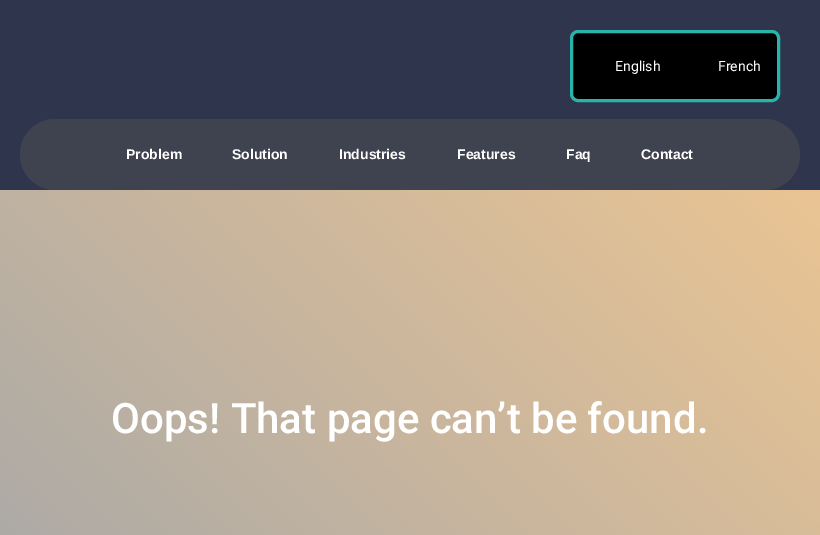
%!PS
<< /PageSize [820 535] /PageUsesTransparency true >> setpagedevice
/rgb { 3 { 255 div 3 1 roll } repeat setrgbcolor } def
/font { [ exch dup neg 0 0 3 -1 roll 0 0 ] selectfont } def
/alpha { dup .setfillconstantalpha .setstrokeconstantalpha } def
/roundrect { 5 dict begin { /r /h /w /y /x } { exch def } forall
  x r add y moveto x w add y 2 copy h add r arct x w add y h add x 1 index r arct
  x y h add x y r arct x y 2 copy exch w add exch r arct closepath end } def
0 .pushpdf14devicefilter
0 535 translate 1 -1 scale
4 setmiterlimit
46 53 76 rgb
0 0 820 535 rectfill
0 0 0 rgb
571.5 31.5 207 69 6.5 roundrect gsave fill grestore
42 180 169 rgb
3 setlinewidth
stroke
91 96 114 rgb
20 119 780 71 35.5 roundrect fill
0.31 alpha
0 0 0 rgb
20 119 780 71 35.5 roundrect fill
1 alpha
gsave 0 190 moveto 820 190 lineto 820 535 lineto 0 535 lineto closepath clip newpath
<< /ShadingType 2 /ColorSpace /DeviceRGB /Coords [95 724 725 95] /Extend [true true] /Function << /FunctionType 2 /Domain [0 1] /C0 [0.659 0.659 0.659] /C1 [0.918 0.769 0.576] /N 1 >> >> shfill grestore
/Roboto-Regular 14 font
255 255 255 rgb
615 71 moveto (English) show
718 71 moveto (French) show
/LiberationSans-Bold 14 font
[
  [(Problem) 126 159]
  [(Solution) 232 159]
  [(Industries) 339 159]
  [(Features) 457 159]
  [(Faq) 566 159]
  [(Contact) 641 159]
] { aload pop moveto show } forall
/Roboto-Medium 42 font
111 433 moveto (Oops! That page can’t be found.) show
.poppdf14devicefilter showpage
